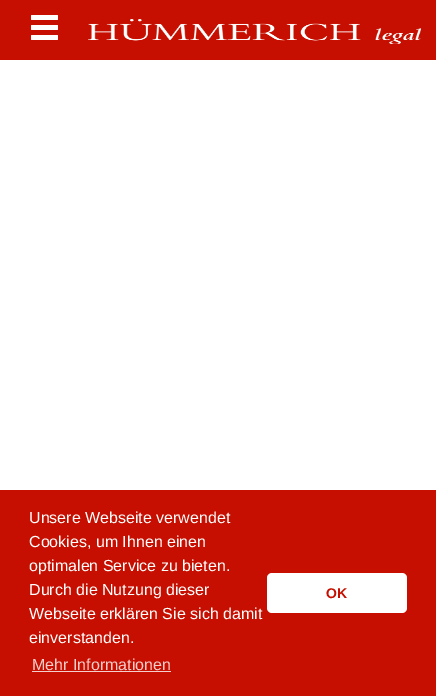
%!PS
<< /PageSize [436 696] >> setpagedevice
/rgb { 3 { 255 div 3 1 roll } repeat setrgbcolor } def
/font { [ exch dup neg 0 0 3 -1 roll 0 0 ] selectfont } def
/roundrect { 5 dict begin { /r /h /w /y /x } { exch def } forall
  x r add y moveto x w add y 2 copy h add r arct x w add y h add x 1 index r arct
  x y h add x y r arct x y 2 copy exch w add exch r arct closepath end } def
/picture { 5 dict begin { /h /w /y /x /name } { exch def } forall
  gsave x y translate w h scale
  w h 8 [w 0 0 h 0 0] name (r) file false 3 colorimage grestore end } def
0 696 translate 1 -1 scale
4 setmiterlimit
255 255 255 rgb
0 0 436 696 rectfill
198 15 0 rgb
0 0 436 60 rectfill
255 255 255 rgb
31 15 27 5 1 roundrect fill
31 25 27 5 1 roundrect fill
31 35 27 5 1 roundrect fill
(img/1.rgb) 88 19 333 25 picture
198 15 0 rgb
0 490 436 206 rectfill
244 207 204 rgb
32 671 139 1 rectfill
255 255 255 rgb
267 573 140 40 5 roundrect fill
/LiberationSans-Regular 16 font
[
  [(Unsere Webseite verwendet) 29 523]
  [(Cookies, um Ihnen einen) 29 547]
  [(optimalen Service zu bieten.) 29 571]
  [(Durch die Nutzung dieser) 29 595]
  [(Webseite erklären Sie sich damit) 29 619]
  [(einverstanden.) 29 643]
] { aload pop moveto show } forall
244 207 204 rgb
32 670 moveto (Mehr Informationen) show
/LiberationSans-Bold 14 font
198 15 0 rgb
326 598 moveto (OK) show
showpage
